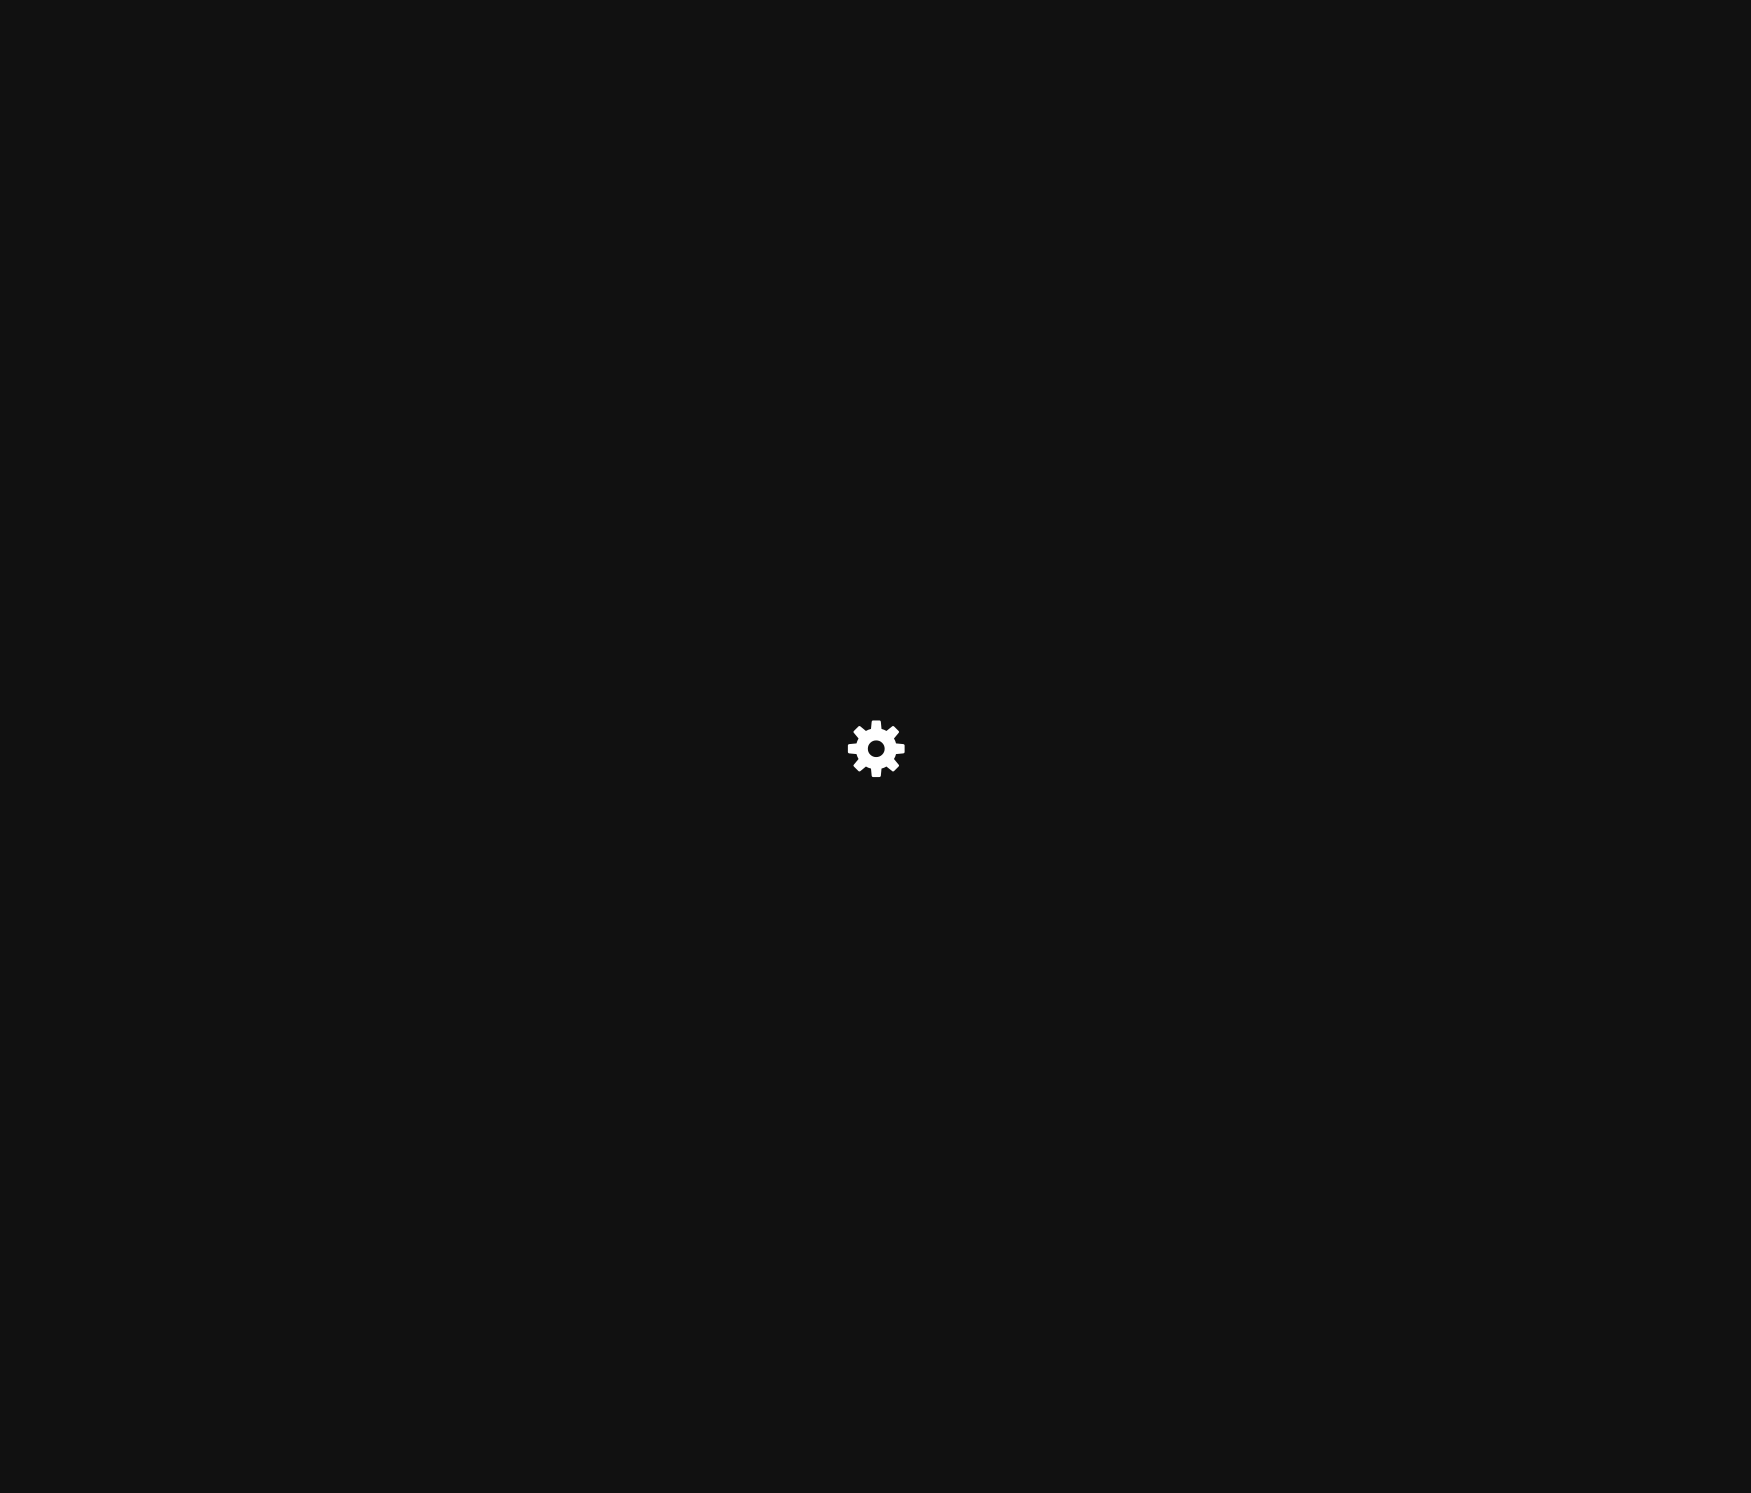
%!PS
<< /PageSize [1751 1493] >> setpagedevice
/rgb { 3 { 255 div 3 1 roll } repeat setrgbcolor } def
/picture { 5 dict begin { /h /w /y /x /name } { exch def } forall
  gsave x y translate w h scale
  w h 8 [w 0 0 h 0 0] name (r) file false 3 colorimage grestore end } def
0 1493 translate 1 -1 scale
4 setmiterlimit
17 17 17 rgb
0 0 1751 1493 rectfill
(img/1.rgb) 847 720 58 58 picture
showpage
